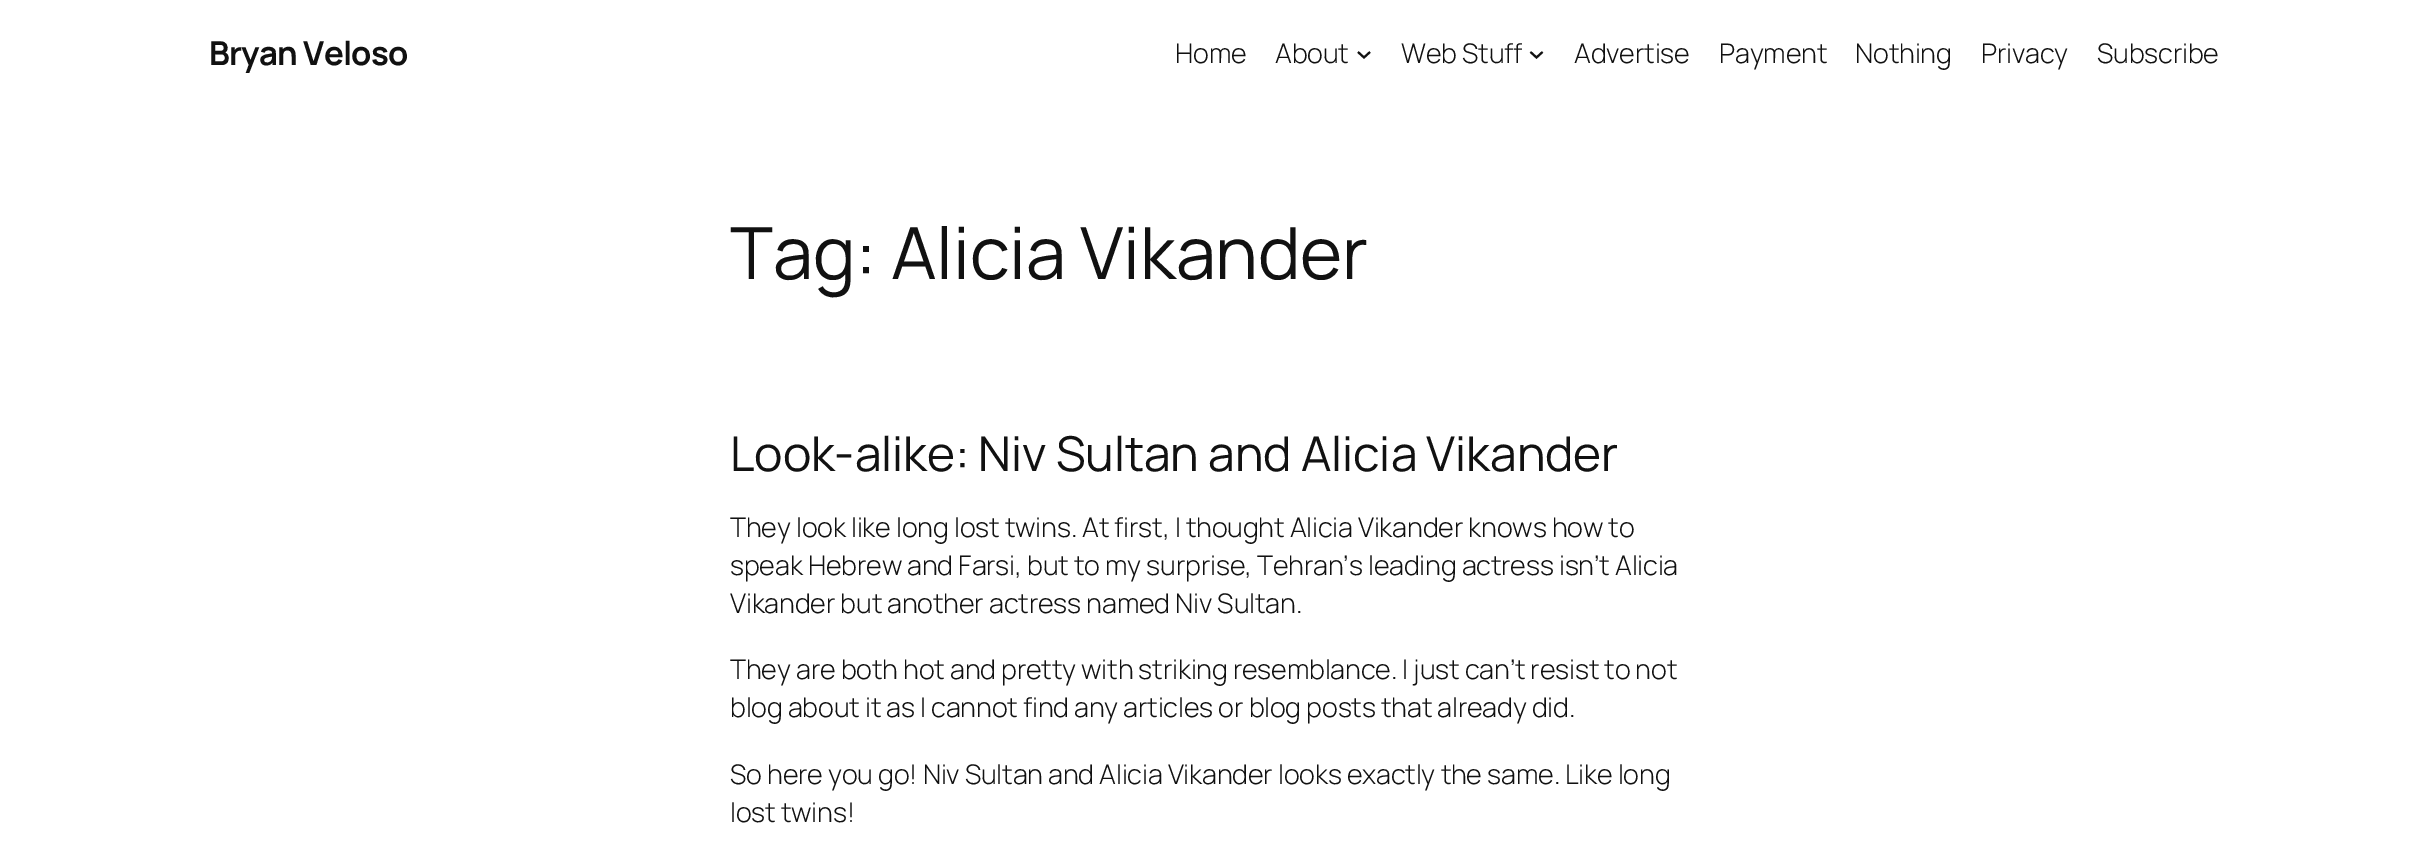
%!PS
<< /PageSize [2427 847] >> setpagedevice
/rgb { 3 { 255 div 3 1 roll } repeat setrgbcolor } def
/font { [ exch dup neg 0 0 3 -1 roll 0 0 ] selectfont } def
0 847 translate 1 -1 scale
4 setmiterlimit
255 255 255 rgb
0 0 2427 847 rectfill
17 17 17 rgb
2 setlinewidth
1358 52 moveto 1364 57.5 lineto 1370 52 lineto stroke
1530.5 52 moveto 1536.5 57.5 lineto 1542.5 52 lineto stroke
/Manrope-Bold 33 font
209 65 moveto -0.75 0 (Bryan Veloso) ashow
/Manrope-Light 27 font
1175 63 moveto -0.15 0 (Home) ashow
1275 63 moveto -0.15 0 (About) ashow
1401 63 moveto -0.15 0 (Web Stuff) ashow
1574 63 moveto -0.15 0 (Advertise) ashow
1719 63 moveto -0.15 0 (Payment) ashow
1855 63 moveto -0.15 0 (Nothing) ashow
1981 63 moveto -0.15 0 (Privacy) ashow
2097 63 moveto -0.15 0 (Subscribe) ashow
/Manrope-Regular 72 font
730 279 moveto -0.15 0 (Tag: Alicia Vikander) ashow
/Manrope-Regular 48 font
730 471 moveto -0.15 0 (Look-alike: Niv Sultan and Alicia Vikander) ashow
/Manrope-Light 27 font
730 537 moveto -0.15 0 (They look like long lost twins. At first, I thought Alicia Vikander knows how to) ashow
730 575 moveto -0.15 0 (speak Hebrew and Farsi, but to my surprise, Tehran’s leading actress isn’t Alicia) ashow
730 613 moveto -0.15 0 (Vikander but another actress named Niv Sultan.) ashow
730 679 moveto -0.15 0 (They are both hot and pretty with striking resemblance. I just can’t resist to not) ashow
730 717 moveto -0.15 0 (blog about it as I cannot find any articles or blog posts that already did.) ashow
730 784 moveto -0.15 0 (So here you go! Niv Sultan and Alicia Vikander looks exactly the same. Like long) ashow
730 822 moveto -0.15 0 (lost twins!) ashow
showpage
